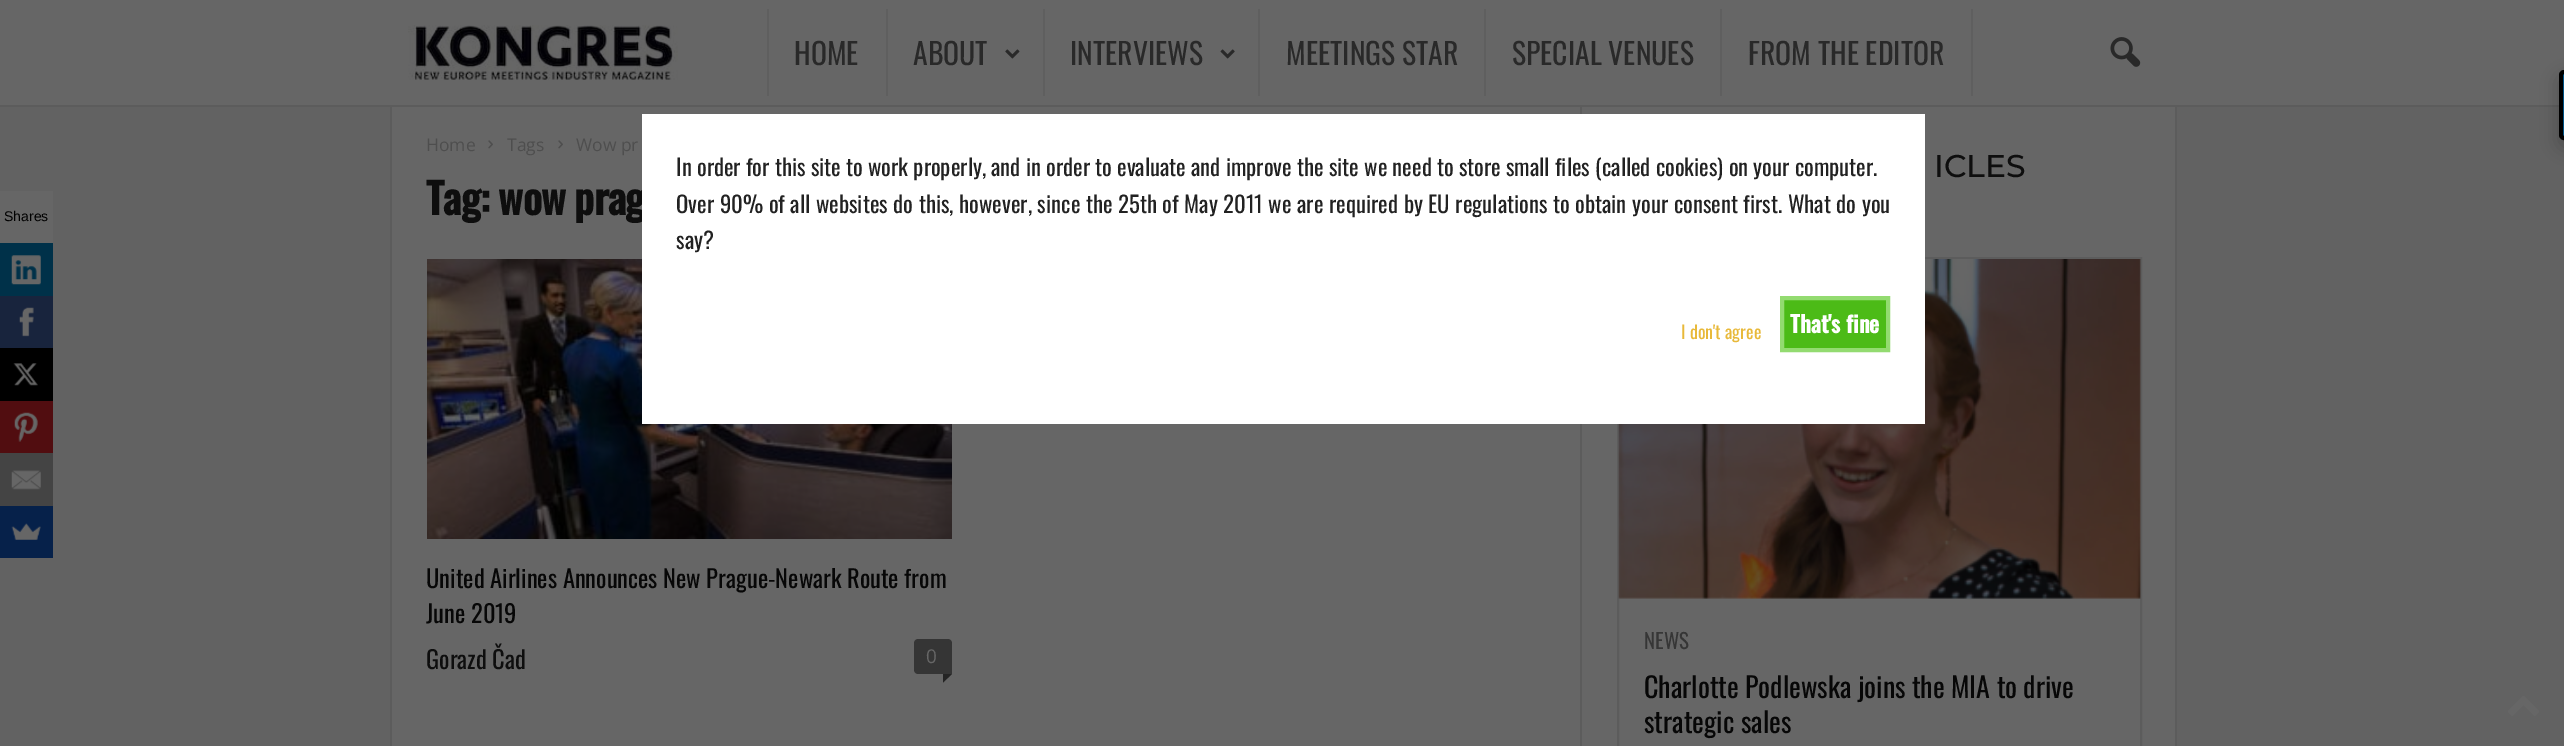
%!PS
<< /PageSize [2564 746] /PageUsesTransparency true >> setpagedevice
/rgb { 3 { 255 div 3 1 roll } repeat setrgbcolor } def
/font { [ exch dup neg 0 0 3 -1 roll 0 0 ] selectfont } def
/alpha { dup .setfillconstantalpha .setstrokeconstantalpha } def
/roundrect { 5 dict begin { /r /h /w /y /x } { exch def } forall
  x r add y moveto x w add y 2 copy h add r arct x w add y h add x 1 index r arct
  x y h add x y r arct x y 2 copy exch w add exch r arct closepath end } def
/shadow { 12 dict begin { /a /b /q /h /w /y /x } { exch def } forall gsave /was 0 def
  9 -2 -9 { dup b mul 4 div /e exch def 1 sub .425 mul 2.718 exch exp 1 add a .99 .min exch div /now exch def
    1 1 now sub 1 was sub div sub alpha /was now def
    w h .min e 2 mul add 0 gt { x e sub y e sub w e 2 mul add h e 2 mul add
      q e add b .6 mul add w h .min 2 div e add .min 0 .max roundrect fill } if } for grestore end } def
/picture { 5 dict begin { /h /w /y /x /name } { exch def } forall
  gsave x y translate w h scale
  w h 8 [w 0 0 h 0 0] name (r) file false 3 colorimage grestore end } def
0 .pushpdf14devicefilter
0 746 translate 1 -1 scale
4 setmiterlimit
98 98 98 rgb
0 0 2564 746 rectfill
[
  [0 0 2564 105 102 102 102]
  [390 105 2 641 92 92 92]
  [392 107 1783 639 102 102 102]
  [1580 105 2 641 92 92 92]
  [2175 105 2 641 92 92 92]
  [0 105 2564 2 92 92 92]
] { aload pop rgb rectfill } forall
(img/1.rgb) 408 25 270 55 picture
[
  [886 9 2 87 95 95 95]
  [767 9 2 87 95 95 95]
  [1043 9 2 87 95 95 95]
] { aload pop rgb rectfill } forall
(img/2.rgb) 1005 49 15 10 picture
1258 9 2 87 rectfill
(img/3.rgb) 1220 49 15 10 picture
[
  [1484 9 2 87 95 95 95]
  [1720 9 2 87 95 95 95]
  [1971 9 2 87 95 95 95]
] { aload pop rgb rectfill } forall
(img/4.rgb) 2110 37 31 30 picture
(img/5.rgb) 488 140 5 9 picture
(img/5.rgb) 558 140 5 9 picture
(img/6.rgb) 427 259 525 280 picture
53 53 53 rgb
918 639 moveto 948 639 lineto 950 639 952 641 952 643 curveto 952 674 lineto 918 674 lineto 916 674 914 672 914 670 curveto 914 643 lineto 914 641 916 639 918 639 curveto closepath fill
36 36 36 rgb
943 674 moveto 952 674 lineto 943 682.5 lineto closepath fill
92 92 92 rgb
2 setlinewidth
1618 258 523 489 rectstroke
(img/7.rgb) 1618 259 523 340 picture
0 0 0 rgb
2559 77 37 70 5 9 0.2 shadow
0 115 183 rgb
2564 72 moveto 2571 72 lineto 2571 138 lineto 2564 138 lineto 2562.5 138 2561 136.5 2561 135 curveto 2561 75 lineto 2561 73.5 2562.5 72 2564 72 curveto closepath gsave fill grestore
0 0 0 rgb
4 setlinewidth
stroke
102 102 102 rgb
0 191 53 52 rectfill
0 49 73 rgb
0 243 53 53 rectfill
(img/8.rgb) 11 255 30 30 picture
24 36 61 rgb
0 296 53 52 rectfill
(img/9.rgb) 19 307 15 30 picture
0 0 0 rgb
0 348 53 53 rectfill
(img/10.rgb) 13 363 25 23 picture
81 13 16 rgb
0 401 53 52 rectfill
(img/11.rgb) 14 412 24 30 picture
68 68 68 rgb
0 453 53 53 rectfill
(img/12.rgb) 11 470 30 20 picture
6 33 74 rgb
0 506 53 52 rectfill
(img/13.rgb) 11 523 30 17 picture
(img/14.rgb) 2508 696 31 20 picture
/Oswald-Regular 29.75 font
41 41 41 rgb
[
  [(HOME) 794 65]
  [(ABOUT) 913 65]
  [(INTERVIEWS) 1070 65]
  [(MEETINGS STAR) 1286 65]
  [(SPECIAL VENUES) 1512 65]
  [(FROM THE EDITOR) 1748 65]
] { aload pop moveto show } forall
/OpenSans-Regular 17.5 font
78 78 78 rgb
[
  [(Home) 426 151]
  [(Tags) 507 151]
  [(Wow pr) 576 151]
] { aload pop moveto show } forall
/Oswald-Bold 42 font
14 14 14 rgb
426 215 moveto -0.8 0 (Tag: wow prag) ashow
/Oswald-Regular 24.5 font
7 7 7 rgb
426 588 moveto (United Airlines Announces New Prague-Newark Route from) show
426 623 moveto (June 2019) show
14 14 14 rgb
426 669 moveto (Gorazd Čad) show
/OpenSans-Regular 19 font
102 102 102 rgb
926 663 moveto (0) show
/Montserrat-Medium 31.5 font
14 14 14 rgb
1934 177 moveto (ICLES) show
/Oswald-Regular 21 font
54 54 54 rgb
1644 649 moveto (NEWS) show
/Oswald-Regular 28 font
7 7 7 rgb
1644 698 moveto (Charlotte Podlewska joins the MIA to drive) show
1644 733 moveto (strategic sales) show
/LiberationSans-Regular 14 font
0 0 0 rgb
4 221 moveto (Shares) show
255 255 255 rgb
642 114 1283 310 rectfill
/Oswald-Regular 22.75 font
34 34 34 rgb
676 176 moveto (In order for this site to work properly, and in order to evaluate and improve the site we need to store small files \(called cookies\) on your computer.) show
676 213 moveto 0.4 0 32 (Over 90% of all websites do this, however, since the 25th of May 2011 we are required by EU regulations to obtain your consent first. What do you) widthshow
676 249 moveto (say?) show
/Oswald-Regular 18 font
232 185 58 rgb
1681 339 moveto (I don't agree) show
76 187 23 rgb
1782 298 moveto 1888 298 lineto 1888 350 lineto 1782 350 lineto closepath gsave fill grestore
147 219 112 rgb
stroke
/Oswald-Bold 22.75 font
255 255 255 rgb
1790 333 moveto (That's fine) show
.poppdf14devicefilter showpage
